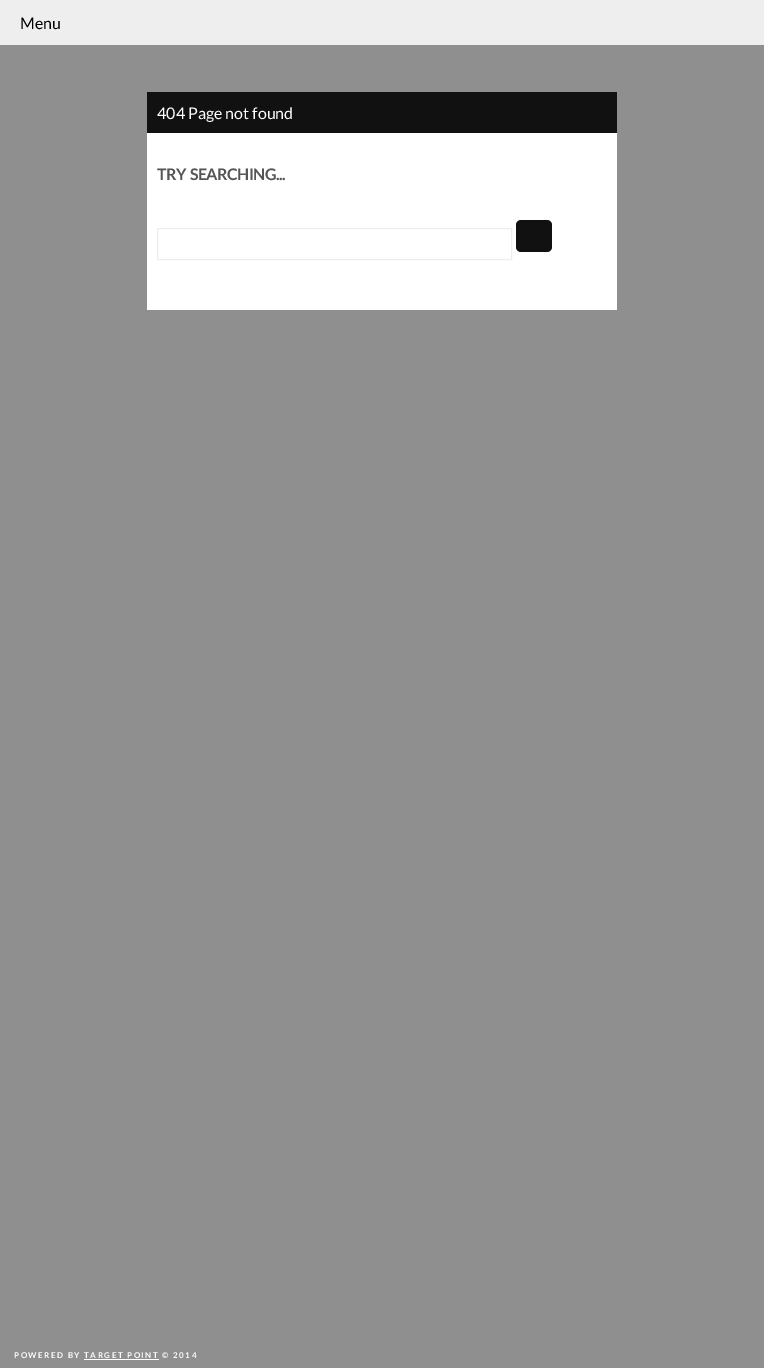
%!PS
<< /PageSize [764 1368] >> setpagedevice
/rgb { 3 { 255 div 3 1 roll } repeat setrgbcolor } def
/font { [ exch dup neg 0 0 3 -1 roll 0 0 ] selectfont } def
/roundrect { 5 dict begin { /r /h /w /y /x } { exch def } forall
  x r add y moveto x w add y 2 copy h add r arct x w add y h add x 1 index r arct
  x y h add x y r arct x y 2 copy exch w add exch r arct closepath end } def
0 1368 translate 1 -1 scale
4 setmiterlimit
143 143 143 rgb
0 0 764 1368 rectfill
[
  [0 0 764 45 238 238 238]
  [147 133 470 177 255 255 255]
  [147 92 470 41 17 17 17]
] { aload pop rgb rectfill } forall
238 238 238 rgb
157.5 228.5 354 31 rectstroke
17 17 17 rgb
516 220 36 32 5 roundrect fill
255 255 255 rgb
84 1359 75 1 rectfill
/Lato-Regular 16 font
0 0 0 rgb
20 29 moveto (Menu) show
255 255 255 rgb
157 119 moveto (404 Page not found) show
/Lato-Bold 16 font
85 85 85 rgb
157 180 moveto 1 0 32 -0.5 0 (TRY SEARCHING...) awidthshow
/Lato-Bold 8 font
255 255 255 rgb
14 1358 moveto 1.5 0 (POWERED BY TARGET POINT © 2014) ashow
showpage
